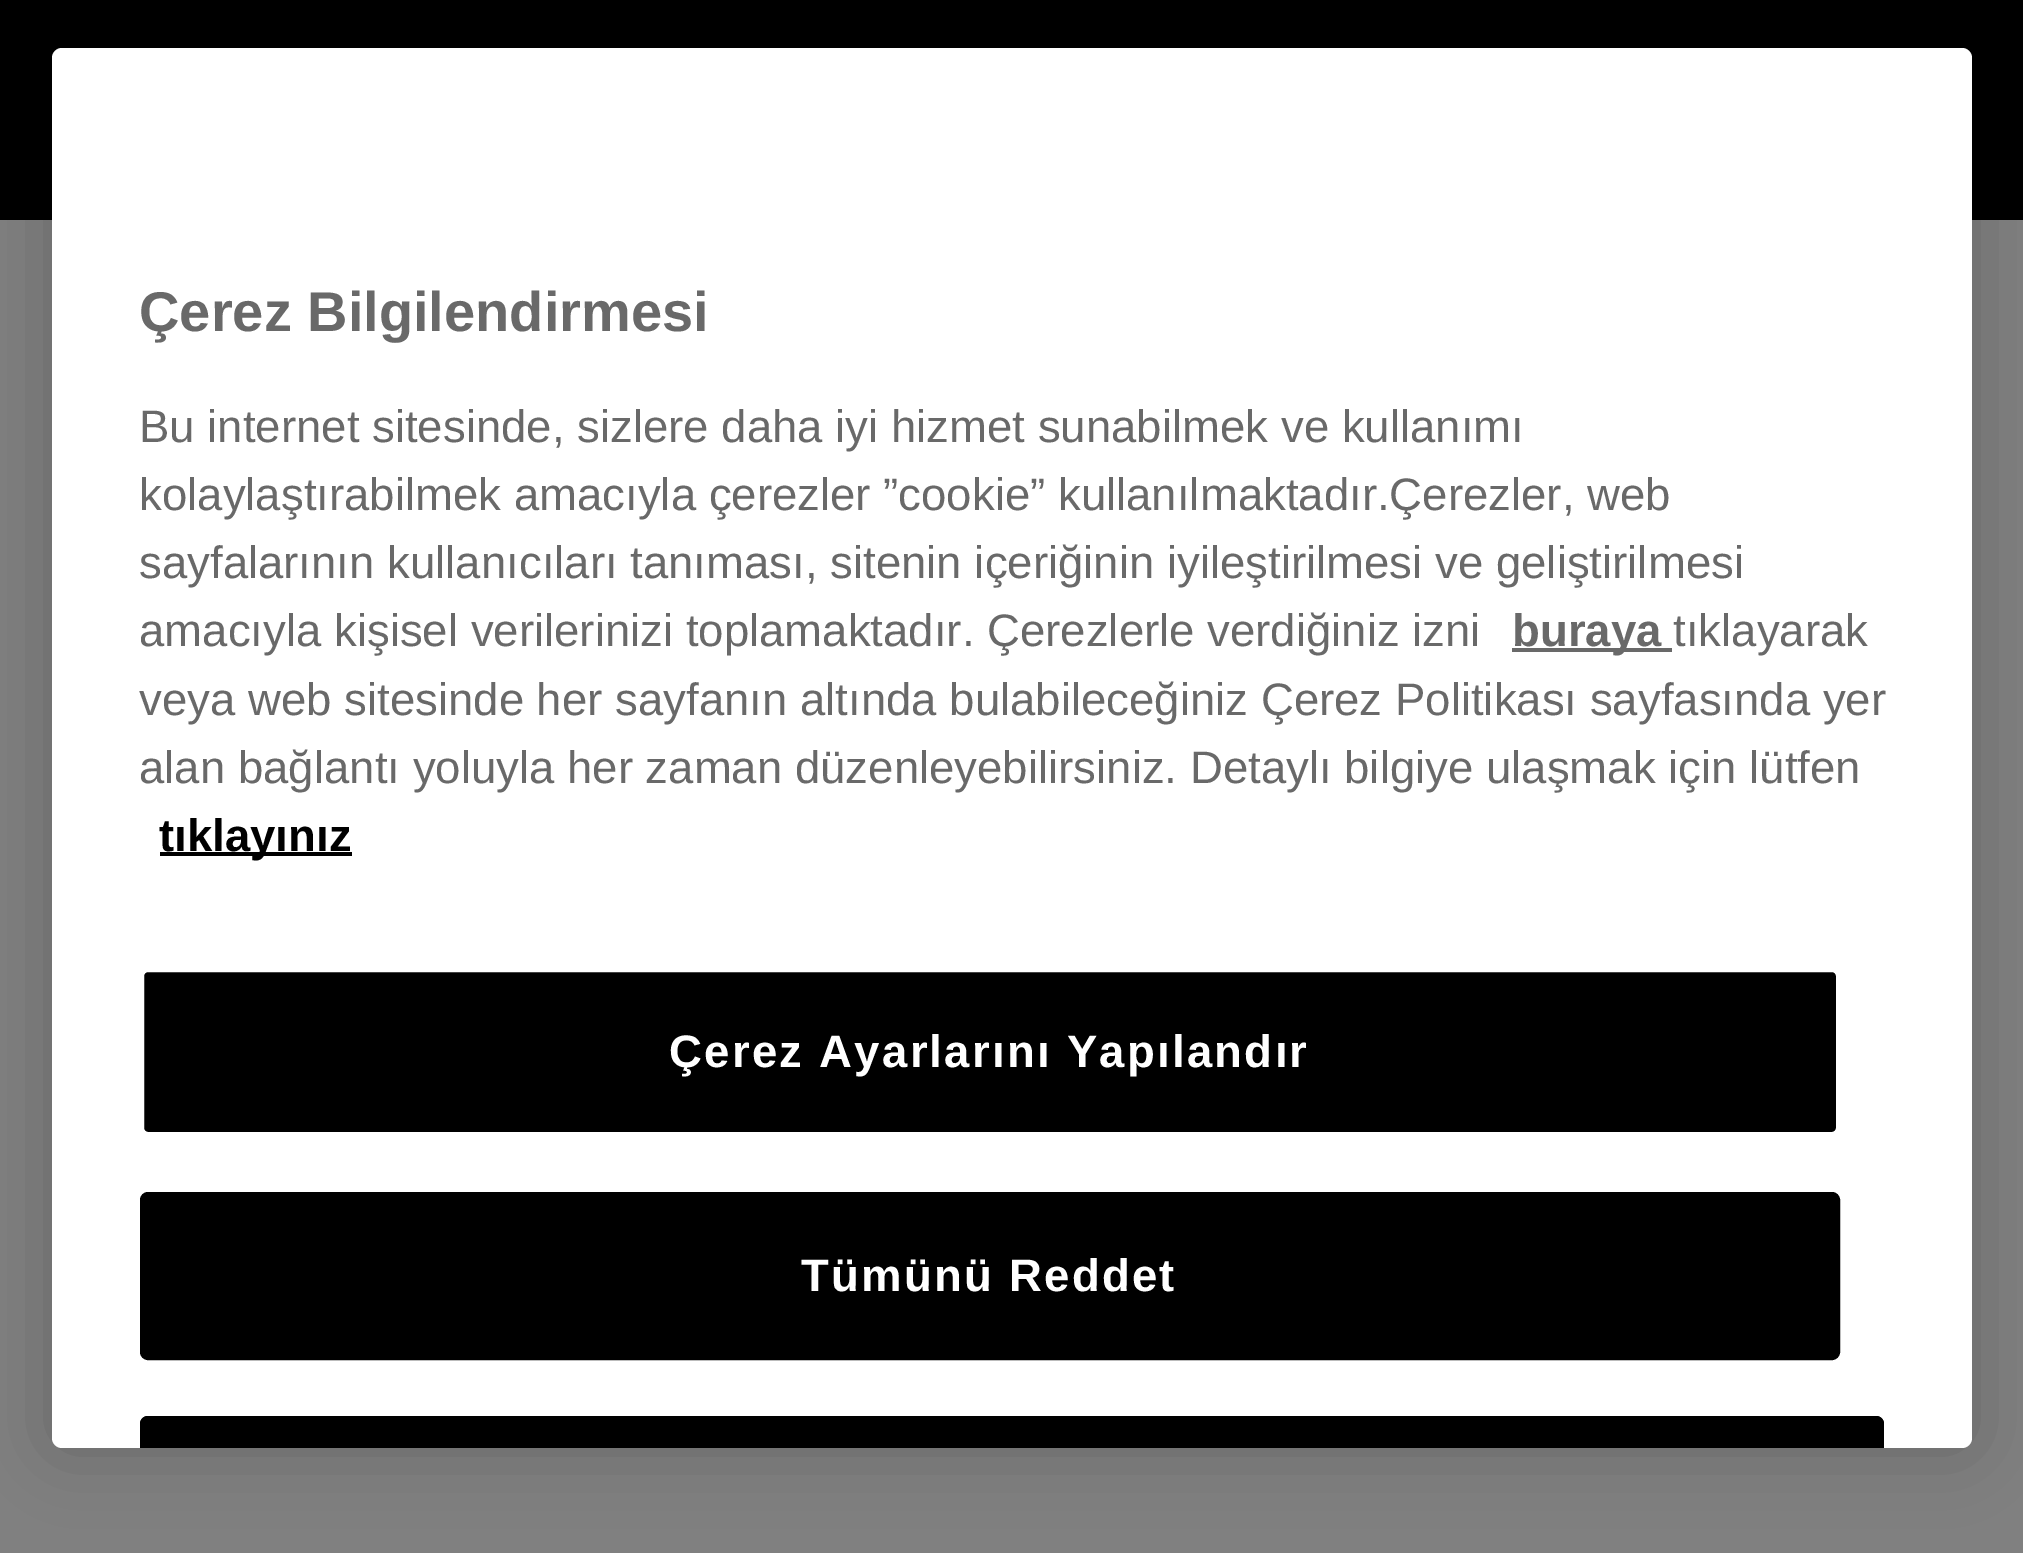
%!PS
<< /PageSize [2023 1553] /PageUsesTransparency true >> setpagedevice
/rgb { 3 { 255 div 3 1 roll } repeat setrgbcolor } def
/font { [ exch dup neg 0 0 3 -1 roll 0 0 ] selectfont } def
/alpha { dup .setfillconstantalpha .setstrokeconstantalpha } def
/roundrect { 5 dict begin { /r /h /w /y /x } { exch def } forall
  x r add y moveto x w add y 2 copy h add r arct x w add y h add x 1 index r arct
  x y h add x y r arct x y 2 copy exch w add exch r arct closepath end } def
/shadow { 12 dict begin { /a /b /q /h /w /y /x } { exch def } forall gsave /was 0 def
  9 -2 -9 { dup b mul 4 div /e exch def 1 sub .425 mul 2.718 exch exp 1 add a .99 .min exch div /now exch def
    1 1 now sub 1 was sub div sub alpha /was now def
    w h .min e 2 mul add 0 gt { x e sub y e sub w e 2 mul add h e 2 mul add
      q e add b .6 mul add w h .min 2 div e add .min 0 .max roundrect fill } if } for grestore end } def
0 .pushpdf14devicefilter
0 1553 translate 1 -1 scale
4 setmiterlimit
128 128 128 rgb
0 0 2023 1553 rectfill
0 0 0 rgb
0 0 2023 220 rectfill
gsave
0 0 moveto 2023 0 lineto 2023 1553 lineto 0 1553 lineto closepath 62 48 moveto 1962 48 lineto 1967.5 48 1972 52.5 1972 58 curveto 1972 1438 lineto 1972 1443.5 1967.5 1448 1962 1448 curveto 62 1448 lineto 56.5 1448 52 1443.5 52 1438 curveto 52 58 lineto 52 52.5 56.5 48 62 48 curveto closepath eoclip newpath
52 48 1920 1400 10 36 0.2 shadow
grestore
255 255 255 rgb
52 48 1920 1400 10 roundrect fill
105 105 105 rgb
1512 648 160 4 rectfill
0 0 0 rgb
160 852 192 4 rectfill
142 970 1696 164 6 roundrect gsave fill grestore
255 255 255 rgb
4 setlinewidth
stroke
0 0 0 rgb
142 1194 1696 164 6 roundrect gsave fill grestore
stroke
148 1416 moveto 1876 1416 lineto 1880.5 1416 1884 1419.5 1884 1424 curveto 1884 1448 lineto 140 1448 lineto 140 1424 lineto 140 1419.5 143.5 1416 148 1416 curveto closepath fill
148 1416 moveto 144 1416 140 1420 140 1424 curveto 140 1448 lineto 144 1448 lineto 144 1424 lineto 144 1422 146 1420 148 1420 curveto 1876 1420 lineto 1878 1420 1880 1422 1880 1424 curveto 1880 1448 lineto 1884 1448 lineto 1884 1424 lineto 1884 1420 1880 1416 1876 1416 curveto closepath fill
/LiberationSans-Bold 56 font
105 105 105 rgb
139 331 moveto (Çerez Bilgilendirmesi) show
/LiberationSans-Regular 45.55 font
[
  [(Bu internet sitesinde, sizlere daha iyi hizmet sunabilmek ve kullanımı) 139 442]
  [(kolaylaştırabilmek amacıyla çerezler ”cookie” kullanılmaktadır.Çerezler, web) 139 510]
  [(sayfalarının kullanıcıları tanıması, sitenin içeriğinin iyileştirilmesi ve geliştirilmesi) 139 578]
  [(amacıyla kişisel verilerinizi toplamaktadır. Çerezlerle verdiğiniz izni) 139 646]
] { aload pop moveto show } forall
/LiberationSans-Bold 45.55 font
1512 646 moveto (buraya) show
/LiberationSans-Regular 45.55 font
[
  [(tıklayarak) 1673 646]
  [(veya web sitesinde her sayfanın altında bulabileceğiniz Çerez Politikası sayfasında yer) 139 715]
  [(alan bağlantı yoluyla her zaman düzenleyebilirsiniz. Detaylı bilgiye ulaşmak için lütfen) 139 783]
] { aload pop moveto show } forall
/LiberationSans-Bold 45.55 font
0 0 0 rgb
159 851 moveto (tıklayınız) show
255 255 255 rgb
669 1067 moveto 2.25 0 (Çerez Ayarlarını Yapılandır) ashow
801 1291 moveto 2.25 0 (Tümünü Reddet) ashow
.poppdf14devicefilter showpage
